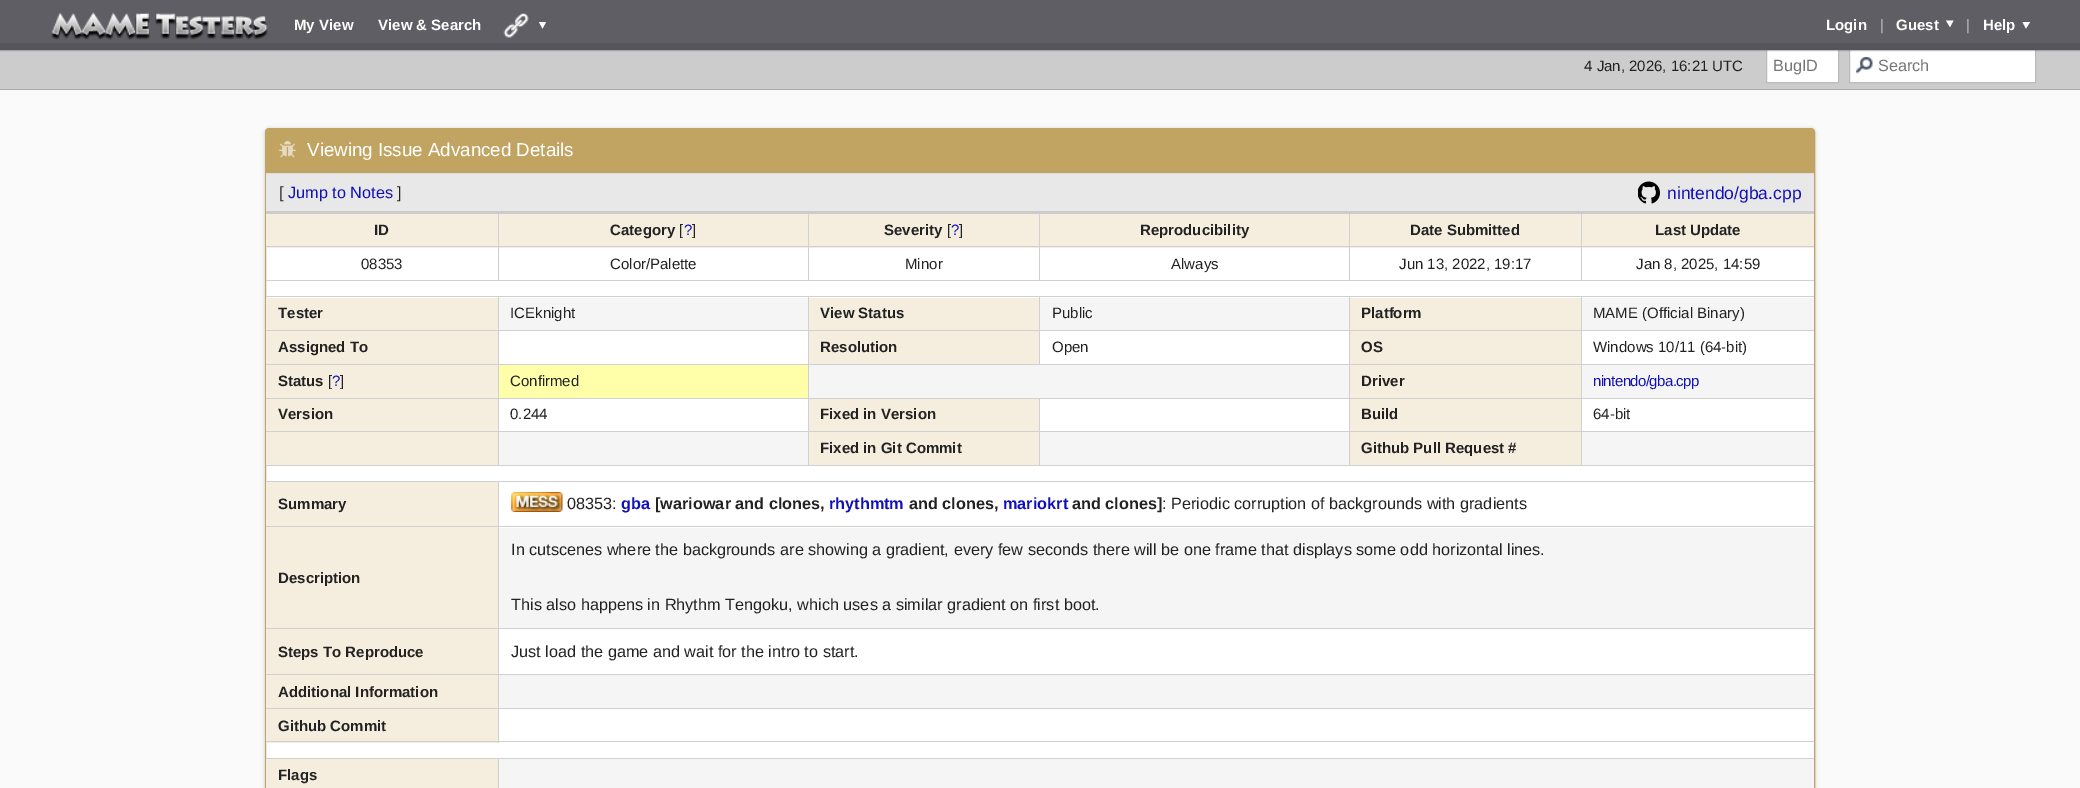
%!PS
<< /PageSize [2080 788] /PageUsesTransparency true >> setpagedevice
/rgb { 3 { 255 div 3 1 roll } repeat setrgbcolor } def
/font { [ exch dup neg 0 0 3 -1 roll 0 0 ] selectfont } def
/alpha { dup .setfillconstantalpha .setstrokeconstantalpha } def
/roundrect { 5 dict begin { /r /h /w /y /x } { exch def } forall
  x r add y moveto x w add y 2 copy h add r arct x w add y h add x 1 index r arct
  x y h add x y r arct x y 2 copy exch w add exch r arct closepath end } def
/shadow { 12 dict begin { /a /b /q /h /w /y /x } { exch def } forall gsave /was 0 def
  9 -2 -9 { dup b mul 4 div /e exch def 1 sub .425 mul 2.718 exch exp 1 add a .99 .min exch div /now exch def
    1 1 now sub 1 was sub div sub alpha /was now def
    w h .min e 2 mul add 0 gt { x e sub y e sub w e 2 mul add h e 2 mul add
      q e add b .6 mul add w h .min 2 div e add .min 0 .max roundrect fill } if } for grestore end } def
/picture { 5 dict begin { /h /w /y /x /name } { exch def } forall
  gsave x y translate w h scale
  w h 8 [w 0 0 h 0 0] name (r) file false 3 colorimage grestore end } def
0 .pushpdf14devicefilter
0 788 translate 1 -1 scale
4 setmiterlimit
250 250 250 rgb
0 0 2080 788 rectfill
204 204 204 rgb
0 43 2080 46 rectfill
255 255 255 rgb
1766.5 49.5 moveto 1838.5 49.5 lineto 1838.5 82.5 lineto 1766.5 82.5 lineto closepath gsave fill grestore
187 187 187 rgb
stroke
255 255 255 rgb
1850 50 185 32 rectfill
(img/3.rgb) 1856 57 17 17 picture
187 187 187 rgb
1849.5 49.5 186 33 rectstroke
gsave
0 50 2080 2 rectclip
0 0 0 rgb
-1 -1 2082 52 0 0.5 0.2 shadow
grestore
0.81 alpha
58 58 65 rgb
0 0 2080 50 rectfill
1 alpha
(img/1.rgb) 51 12 217 28 picture
(img/2.rgb) 503 13 26 25 picture
255 255 255 rgb
546 22 moveto 542.5 28.5 lineto 539 22 lineto closepath fill
1953.5 20.5 moveto 1950 27 lineto 1946 20.5 lineto closepath fill
2030 22 moveto 2026 28.5 lineto 2022.5 22 lineto closepath fill
170 170 170 rgb
0 89 2080 1 rectfill
0 0 0 rgb
265 129 1550 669 4 2 0.2 shadow
255 255 255 rgb
265.5 128.5 1549 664 3.5 roundrect gsave fill grestore
193 164 97 rgb
stroke
268.5 129 moveto 1811.5 129 lineto 1813 129 1814 130 1814 131.5 curveto 1814 173 lineto 266 173 lineto 266 131.5 lineto 266 130 267 129 268.5 129 curveto closepath fill
(img/4.rgb) 279 141 17 17 picture
[
  [266 174 1548 37 232 232 232]
  [266 173 1548 1 221 221 221]
  [266 211 1548 3 204 204 204]
] { aload pop rgb rectfill } forall
(img/5.rgb) 1638 181 22 23 picture
[
  [266 214 232 34 245 238 223]
  [499 214 309 34 245 238 223]
  [809 214 230 34 245 238 223]
  [1040 214 309 34 245 238 223]
  [1350 214 231 34 245 238 223]
  [1582 214 232 34 245 238 223]
  [1581 280 233 1 208 208 208]
  [1581 246 1 35 208 208 208]
  [1581 246 233 1 208 208 208]
  [1581 214 1 34 208 208 208]
  [1349 280 234 1 208 208 208]
  [1349 246 1 35 208 208 208]
  [1349 246 234 1 208 208 208]
  [1349 214 1 34 208 208 208]
  [1039 280 311 1 208 208 208]
  [1039 246 1 35 208 208 208]
  [1039 246 311 1 208 208 208]
  [1039 214 1 34 208 208 208]
  [808 280 232 1 208 208 208]
  [808 246 1 35 208 208 208]
  [808 246 232 1 208 208 208]
  [808 214 1 34 208 208 208]
  [498 280 311 1 208 208 208]
  [498 246 1 35 208 208 208]
  [498 246 311 1 208 208 208]
  [498 214 1 34 208 208 208]
  [266 246 233 1 208 208 208]
  [266 280 233 1 208 208 208]
  [499 298 1315 32 245 245 245]
  [809 365 1005 33 245 245 245]
  [499 432 1315 33 245 245 245]
  [1581 465 233 1 208 208 208]
  [1581 431 1 35 208 208 208]
  [1581 431 233 1 208 208 208]
  [1581 398 1 35 208 208 208]
  [1581 398 233 1 208 208 208]
  [1581 364 1 35 208 208 208]
  [1581 364 233 1 208 208 208]
  [1581 330 1 35 208 208 208]
  [1581 330 233 1 208 208 208]
  [1581 296 1 35 208 208 208]
  [1349 465 234 1 208 208 208]
  [1349 431 1 35 208 208 208]
  [1349 431 234 1 208 208 208]
  [1349 398 1 35 208 208 208]
  [1349 398 234 1 208 208 208]
  [1349 364 1 35 208 208 208]
  [1349 364 234 1 208 208 208]
  [1349 330 1 35 208 208 208]
  [1349 330 234 1 208 208 208]
  [1349 296 1 35 208 208 208]
  [1039 364 311 1 208 208 208]
  [1039 330 1 35 208 208 208]
  [1039 330 311 1 208 208 208]
  [1039 296 1 35 208 208 208]
  [1039 465 311 1 208 208 208]
  [1039 431 1 35 208 208 208]
  [1039 431 311 1 208 208 208]
  [1039 398 1 35 208 208 208]
  [808 465 232 1 208 208 208]
  [808 431 1 35 208 208 208]
  [808 431 232 1 208 208 208]
  [808 398 1 35 208 208 208]
  [808 398 542 1 208 208 208]
  [808 364 1 35 208 208 208]
  [808 364 232 1 208 208 208]
  [808 330 1 35 208 208 208]
  [808 330 232 1 208 208 208]
  [808 296 1 35 208 208 208]
  [498 465 311 1 208 208 208]
  [498 431 1 35 208 208 208]
  [498 431 311 1 208 208 208]
  [498 398 1 35 208 208 208]
  [498 398 311 1 208 208 208]
  [498 364 1 35 208 208 208]
  [498 364 311 1 208 208 208]
  [498 330 1 35 208 208 208]
  [498 330 311 1 208 208 208]
  [498 296 1 35 208 208 208]
  [266 296 1548 1 208 208 208]
  [266 298 232 32 245 238 223]
  [266 330 233 1 208 208 208]
  [809 298 230 32 245 238 223]
  [1350 298 231 32 245 238 223]
  [266 331 232 33 245 238 223]
  [266 364 233 1 208 208 208]
  [809 331 230 33 245 238 223]
  [1350 331 231 33 245 238 223]
  [266 365 232 33 245 238 223]
  [266 398 233 1 208 208 208]
  [499 365 309 33 255 255 170]
  [1350 365 231 33 245 238 223]
  [266 399 232 32 245 238 223]
  [266 431 233 1 208 208 208]
  [809 399 230 32 245 238 223]
  [1350 399 231 32 245 238 223]
  [266 432 232 33 245 238 223]
  [266 465 233 1 208 208 208]
  [809 432 230 33 245 238 223]
  [1350 432 231 33 245 238 223]
  [498 741 1316 1 208 208 208]
  [498 708 1 35 208 208 208]
  [498 708 1316 1 208 208 208]
  [498 674 1 35 208 208 208]
  [498 674 1316 1 208 208 208]
  [498 628 1 47 208 208 208]
  [498 628 1316 1 208 208 208]
  [498 526 1 103 208 208 208]
  [498 526 1316 1 208 208 208]
  [498 481 1 47 208 208 208]
  [266 481 1548 1 208 208 208]
  [266 482 232 146 245 238 223]
  [266 526 233 1 208 208 208]
] { aload pop rgb rectfill } forall
(img/6.rgb) 511 492 52 20 picture
[
  [499 528 1315 100 245 245 245]
  [266 628 233 1 208 208 208]
  [266 629 232 45 245 238 223]
  [266 674 233 1 208 208 208]
  [499 675 1315 33 245 245 245]
  [266 675 232 33 245 238 223]
  [266 708 233 1 208 208 208]
  [266 709 232 34 245 238 223]
  [266 741 233 1 208 208 208]
  [498 758 1 30 208 208 208]
  [266 758 1548 1 208 208 208]
  [499 759 1315 29 245 245 245]
  [266 759 232 29 245 238 223]
] { aload pop rgb rectfill } forall
/LiberationSans-Bold 15 font
255 255 255 rgb
[
  [(My View) 294 30]
  [(View & Search) 378 30]
  [(Login) 1826 30]
] { aload pop moveto show } forall
/LiberationSans-Regular 15 font
187 187 187 rgb
1880 30 moveto (|) show
/LiberationSans-Bold 15 font
255 255 255 rgb
1896 30 moveto (Guest) show
/LiberationSans-Regular 15 font
187 187 187 rgb
1966 30 moveto (|) show
/LiberationSans-Bold 15 font
255 255 255 rgb
1983 30 moveto (Help) show
/LiberationSans-Regular 15 font
34 34 34 rgb
1584 71 moveto (4 Jan, 2026, 16:21 UTC) show
/LiberationSans-Regular 16.25 font
117 117 117 rgb
1773 71 moveto (BugID) show
1878 71 moveto (Search) show
/LiberationSans-Regular 18.75 font
255 255 255 rgb
307 156 moveto (Viewing Issue Advanced Details) show
/LiberationSans-Regular 16.25 font
34 34 34 rgb
279 198 moveto ([) show
17 17 187 rgb
288 198 moveto (Jump to Notes) show
34 34 34 rgb
397 198 moveto (]) show
/LiberationSans-Regular 17.5 font
17 17 187 rgb
1667 199 moveto (nintendo/gba.cpp) show
/LiberationSans-Bold 15 font
34 34 34 rgb
374 235 moveto (ID) show
610 235 moveto (Category) show
/LiberationSans-Regular 15 font
679 235 moveto ([) show
17 17 187 rgb
684 235 moveto (?) show
34 34 34 rgb
692 235 moveto (]) show
/LiberationSans-Bold 15 font
884 235 moveto (Severity) show
/LiberationSans-Regular 15 font
947 235 moveto ([) show
17 17 187 rgb
951 235 moveto (?) show
34 34 34 rgb
959 235 moveto (]) show
/LiberationSans-Bold 15 font
[
  [(Reproducibility) 1140 235]
  [(Date Submitted) 1410 235]
  [(Last Update) 1655 235]
] { aload pop moveto show } forall
/LiberationSans-Regular 15 font
[
  [(08353) 361 269]
  [(Color/Palette) 610 269]
  [(Minor) 905 269]
  [(Always) 1171 269]
  [(Jun 13, 2022, 19:17) 1399 269]
  [(Jan 8, 2025, 14:59) 1636 269]
] { aload pop moveto show } forall
/LiberationSans-Bold 15 font
278 318 moveto (Tester) show
/LiberationSans-Regular 15 font
510 318 moveto (ICEknight) show
/LiberationSans-Bold 15 font
820 318 moveto (View Status) show
/LiberationSans-Regular 15 font
1052 318 moveto (Public) show
/LiberationSans-Bold 15 font
1361 318 moveto (Platform) show
/LiberationSans-Regular 15 font
1593 318 moveto (MAME \(Official Binary\)) show
/LiberationSans-Bold 15 font
278 352 moveto (Assigned To) show
820 352 moveto (Resolution) show
/LiberationSans-Regular 15 font
1052 352 moveto (Open) show
/LiberationSans-Bold 15 font
1361 352 moveto (OS) show
/LiberationSans-Regular 15 font
1593 352 moveto (Windows 10/11 \(64-bit\)) show
/LiberationSans-Bold 15 font
278 386 moveto (Status) show
/LiberationSans-Regular 15 font
328 386 moveto ([) show
17 17 187 rgb
332 386 moveto (?) show
34 34 34 rgb
340 386 moveto (]) show
510 386 moveto (Confirmed) show
/LiberationSans-Bold 15 font
1361 386 moveto (Driver) show
/LiberationSans-Regular 15 font
17 17 187 rgb
1593 386 moveto -0.6 0 (nintendo/gba.cpp) ashow
/LiberationSans-Bold 15 font
34 34 34 rgb
278 419 moveto (Version) show
/LiberationSans-Regular 15 font
510 419 moveto (0.244) show
/LiberationSans-Bold 15 font
820 419 moveto (Fixed in Version) show
1361 419 moveto (Build) show
/LiberationSans-Regular 15 font
1593 419 moveto (64-bit) show
/LiberationSans-Bold 15 font
[
  [(Fixed in Git Commit) 820 453]
  [(Github Pull Request #) 1361 453]
  [(Summary) 278 509]
] { aload pop moveto show } forall
/LiberationSans-Regular 16.25 font
567 509 moveto (08353:) show
/LiberationSans-Bold 16.25 font
17 17 187 rgb
621 509 moveto (gba) show
34 34 34 rgb
655 509 moveto ([wariowar and clones,) show
17 17 187 rgb
829 509 moveto (rhythmtm) show
34 34 34 rgb
909 509 moveto (and clones,) show
17 17 187 rgb
1003 509 moveto (mariokrt) show
34 34 34 rgb
1072 509 moveto (and clones]) show
/LiberationSans-Regular 16.25 font
1162 509 moveto (: Periodic corruption of backgrounds with gradients) show
/LiberationSans-Bold 15 font
278 583 moveto (Description) show
/LiberationSans-Regular 16.25 font
511 555 moveto (In cutscenes where the backgrounds are showing a gradient, every few seconds there will be one frame that displays some odd horizontal lines.) show
511 610 moveto (This also happens in Rhythm Tengoku, which uses a similar gradient on first boot.) show
/LiberationSans-Bold 15 font
278 657 moveto (Steps To Reproduce) show
/LiberationSans-Regular 16.25 font
511 657 moveto (Just load the game and wait for the intro to start.) show
/LiberationSans-Bold 15 font
[
  [(Additional Information) 278 697]
  [(Github Commit) 278 731]
  [(Flags) 278 780]
] { aload pop moveto show } forall
.poppdf14devicefilter showpage
